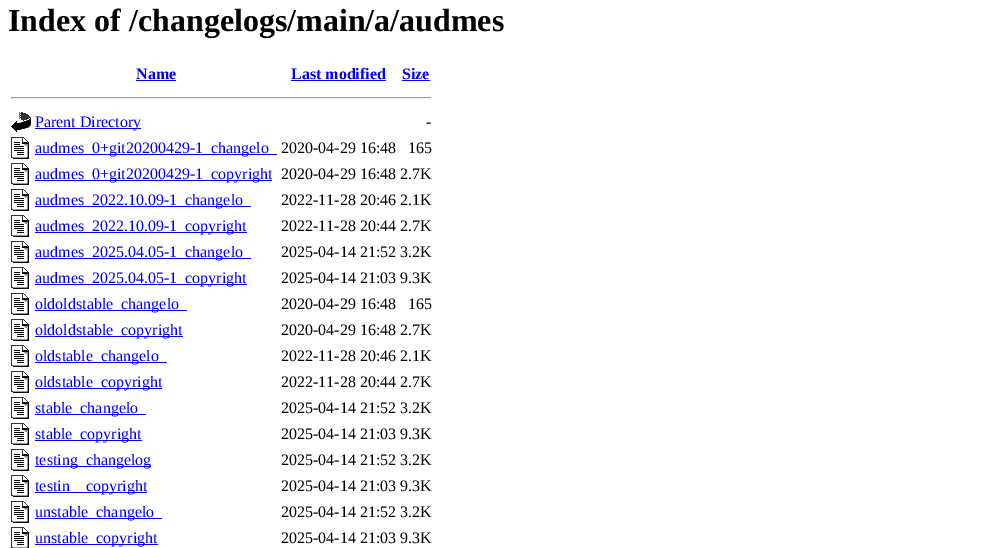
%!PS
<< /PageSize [992 548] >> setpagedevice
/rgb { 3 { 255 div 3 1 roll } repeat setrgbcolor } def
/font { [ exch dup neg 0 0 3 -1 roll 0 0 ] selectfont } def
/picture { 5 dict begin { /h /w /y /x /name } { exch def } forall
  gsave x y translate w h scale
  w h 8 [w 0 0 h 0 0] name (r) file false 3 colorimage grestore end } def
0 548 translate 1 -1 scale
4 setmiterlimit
255 255 255 rgb
0 0 992 548 rectfill
[
  [136 80 40 1 0 0 238]
  [291 80 95 1 0 0 238]
  [402 80 28 1 0 0 238]
  [11 97 421 1 159 159 159]
  [431 97 1 2 238 238 238]
  [11 98 421 1 238 238 238]
  [11 97 1 2 159 159 159]
] { aload pop rgb rectfill } forall
(img/1.rgb) 11 112 20 20 picture
0 0 238 rgb
35 128 106 1 rectfill
(img/2.rgb) 11 137 18 22 picture
35 154 242 1 rectfill
(img/2.rgb) 11 163 18 22 picture
35 180 237 1 rectfill
(img/2.rgb) 11 189 18 22 picture
35 206 216 1 rectfill
(img/2.rgb) 11 215 18 22 picture
35 232 212 1 rectfill
(img/2.rgb) 11 241 18 22 picture
35 258 216 1 rectfill
(img/2.rgb) 11 267 18 22 picture
35 284 212 1 rectfill
(img/2.rgb) 11 293 18 22 picture
35 310 152 1 rectfill
(img/2.rgb) 11 319 18 22 picture
35 336 148 1 rectfill
(img/2.rgb) 11 345 18 22 picture
35 362 132 1 rectfill
(img/2.rgb) 11 371 18 22 picture
35 388 127 1 rectfill
(img/2.rgb) 11 397 18 22 picture
35 414 111 1 rectfill
(img/2.rgb) 11 423 18 22 picture
35 440 107 1 rectfill
(img/2.rgb) 11 449 18 22 picture
35 466 116 1 rectfill
(img/2.rgb) 11 475 18 22 picture
35 492 112 1 rectfill
(img/2.rgb) 11 501 18 22 picture
35 518 127 1 rectfill
(img/3.rgb) 11 527 18 21 picture
35 544 123 1 rectfill
/LiberationSerif-Bold 32 font
0 0 0 rgb
8 31 moveto (Index of /changelogs/main/a/audmes) show
/LiberationSerif-Bold 16 font
0 0 238 rgb
[
  [(Name) 136 79]
  [(Last modified) 291 79]
  [(Size) 402 79]
] { aload pop moveto show } forall
/LiberationSerif-Regular 16 font
35 127 moveto (Parent Directory) show
0 0 0 rgb
426 127 moveto (-) show
0 0 238 rgb
35 153 moveto (audmes_0+git20200429-1_changelo) show
0 0 0 rgb
281 153 moveto (2020-04-29 16:48) show
408 153 moveto (165) show
0 0 238 rgb
35 179 moveto (audmes_0+git20200429-1_copyright) show
0 0 0 rgb
281 179 moveto (2020-04-29 16:48 2.7K) show
0 0 238 rgb
35 205 moveto (audmes_2022.10.09-1_changelo) show
0 0 0 rgb
281 205 moveto (2022-11-28 20:46 2.1K) show
0 0 238 rgb
35 231 moveto (audmes_2022.10.09-1_copyright) show
0 0 0 rgb
281 231 moveto (2022-11-28 20:44 2.7K) show
0 0 238 rgb
35 257 moveto (audmes_2025.04.05-1_changelo) show
0 0 0 rgb
281 257 moveto (2025-04-14 21:52 3.2K) show
0 0 238 rgb
35 283 moveto (audmes_2025.04.05-1_copyright) show
0 0 0 rgb
281 283 moveto (2025-04-14 21:03 9.3K) show
0 0 238 rgb
35 309 moveto (oldoldstable_changelo) show
0 0 0 rgb
281 309 moveto (2020-04-29 16:48) show
408 309 moveto (165) show
0 0 238 rgb
35 335 moveto (oldoldstable_copyright) show
0 0 0 rgb
281 335 moveto (2020-04-29 16:48 2.7K) show
0 0 238 rgb
35 361 moveto (oldstable_changelo) show
0 0 0 rgb
281 361 moveto (2022-11-28 20:46 2.1K) show
0 0 238 rgb
35 387 moveto (oldstable_copyright) show
0 0 0 rgb
281 387 moveto (2022-11-28 20:44 2.7K) show
0 0 238 rgb
35 413 moveto (stable_changelo) show
0 0 0 rgb
281 413 moveto (2025-04-14 21:52 3.2K) show
0 0 238 rgb
35 439 moveto (stable_copyright) show
0 0 0 rgb
281 439 moveto (2025-04-14 21:03 9.3K) show
0 0 238 rgb
35 465 moveto (testing_changelog) show
0 0 0 rgb
281 465 moveto (2025-04-14 21:52 3.2K) show
0 0 238 rgb
35 491 moveto (testin) show
86 491 moveto (copyright) show
0 0 0 rgb
281 491 moveto (2025-04-14 21:03 9.3K) show
0 0 238 rgb
35 517 moveto (unstable_changelo) show
0 0 0 rgb
281 517 moveto (2025-04-14 21:52 3.2K) show
0 0 238 rgb
35 543 moveto (unstable_copyright) show
0 0 0 rgb
281 543 moveto (2025-04-14 21:03 9.3K) show
showpage
